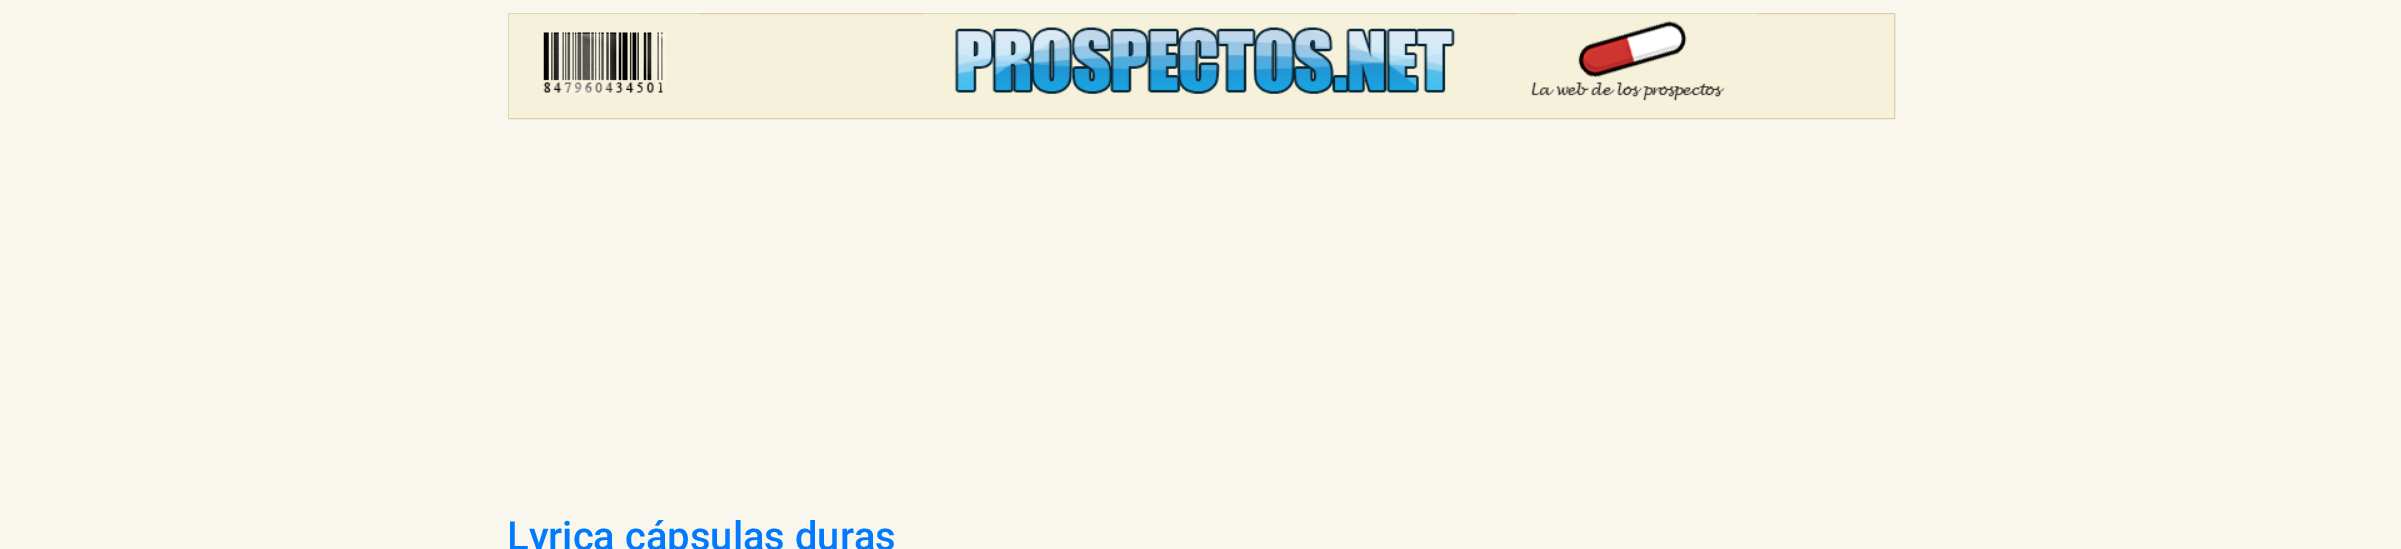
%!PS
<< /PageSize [2401 549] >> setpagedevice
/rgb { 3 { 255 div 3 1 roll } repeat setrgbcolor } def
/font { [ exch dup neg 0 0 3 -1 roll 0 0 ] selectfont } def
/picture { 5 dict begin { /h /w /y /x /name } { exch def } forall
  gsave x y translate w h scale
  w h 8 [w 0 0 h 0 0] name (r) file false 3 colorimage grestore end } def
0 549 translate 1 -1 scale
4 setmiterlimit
249 247 237 rgb
0 0 2401 549 rectfill
246 241 219 rgb
508.5 13.5 moveto 1894.5 13.5 lineto 1894.5 118.5 lineto 508.5 118.5 lineto closepath gsave fill grestore
222 205 169 rgb
stroke
(img/1.rgb) 508 13 191 105 picture
(img/2.rgb) 924 13 555 81 picture
(img/3.rgb) 1516 13 242 88 picture
/Roboto-Medium 40 font
0 123 255 rgb
507 550 moveto (Lyrica cápsulas duras) show
showpage
